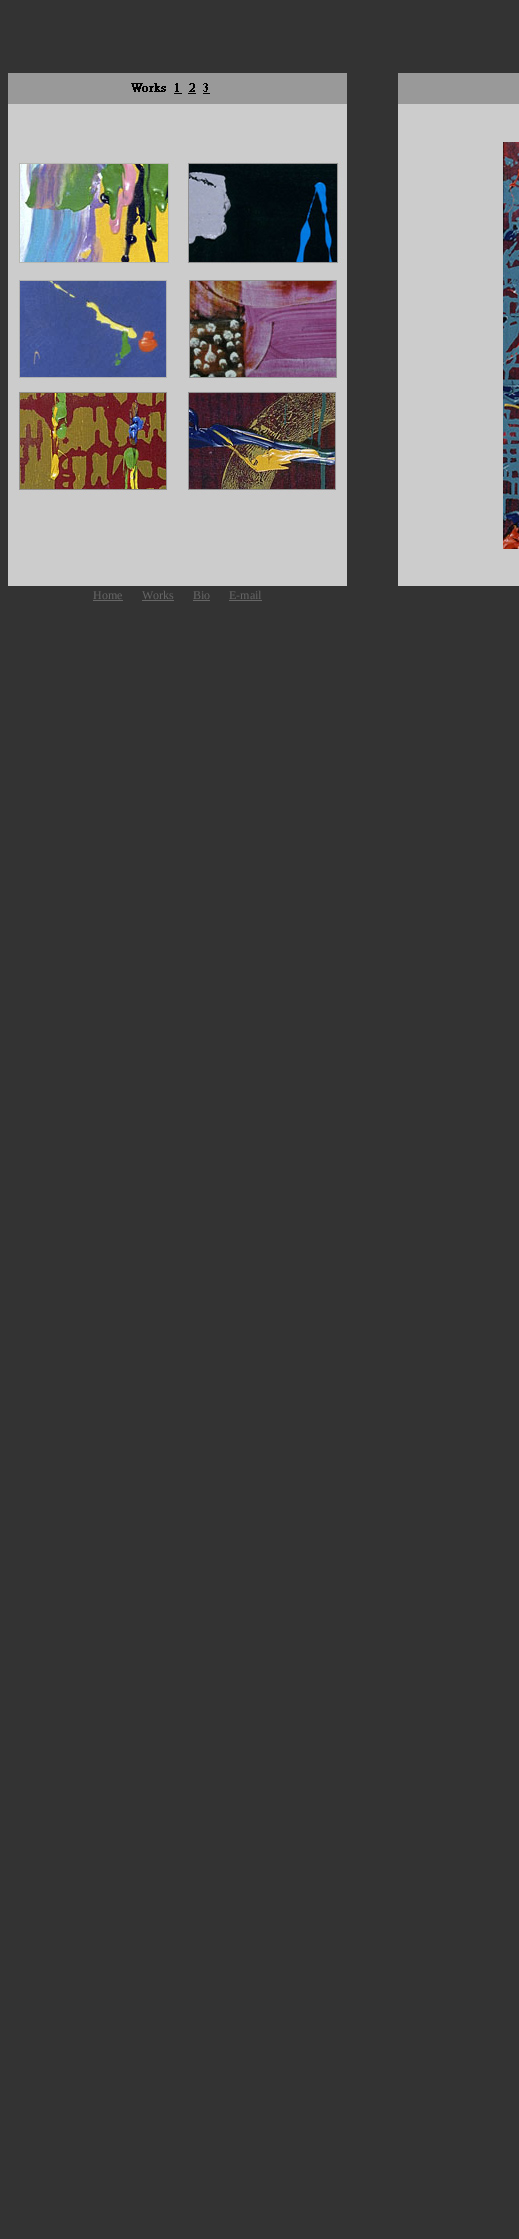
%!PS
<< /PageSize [519 2239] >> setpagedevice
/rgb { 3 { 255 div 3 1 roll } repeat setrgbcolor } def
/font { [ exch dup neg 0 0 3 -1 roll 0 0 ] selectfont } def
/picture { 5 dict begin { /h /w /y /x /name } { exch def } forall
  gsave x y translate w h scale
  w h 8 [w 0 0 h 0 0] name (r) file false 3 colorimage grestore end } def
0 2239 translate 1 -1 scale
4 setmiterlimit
51 51 51 rgb
0 0 519 2239 rectfill
153 153 153 rgb
8 73 339 31 rectfill
(img/1.rgb) 131 83 79 11 picture
398 73 121 31 rectfill
204 204 204 rgb
8 104 339 482 rectfill
(img/2.rgb) 16 160 328 336 picture
398 104 121 482 rectfill
(img/3.rgb) 503 142 16 407 picture
[
  [93 600 30 1 102 102 102]
  [142 600 32 1 102 102 102]
  [193 600 17 1 102 102 102]
  [229 600 33 1 102 102 102]
] { aload pop rgb rectfill } forall
/LiberationSerif-Regular 12 font
[
  [(Home) 93 599]
  [(Works) 142 599]
  [(Bio) 193 599]
  [(E-mail) 229 599]
] { aload pop moveto show } forall
showpage
